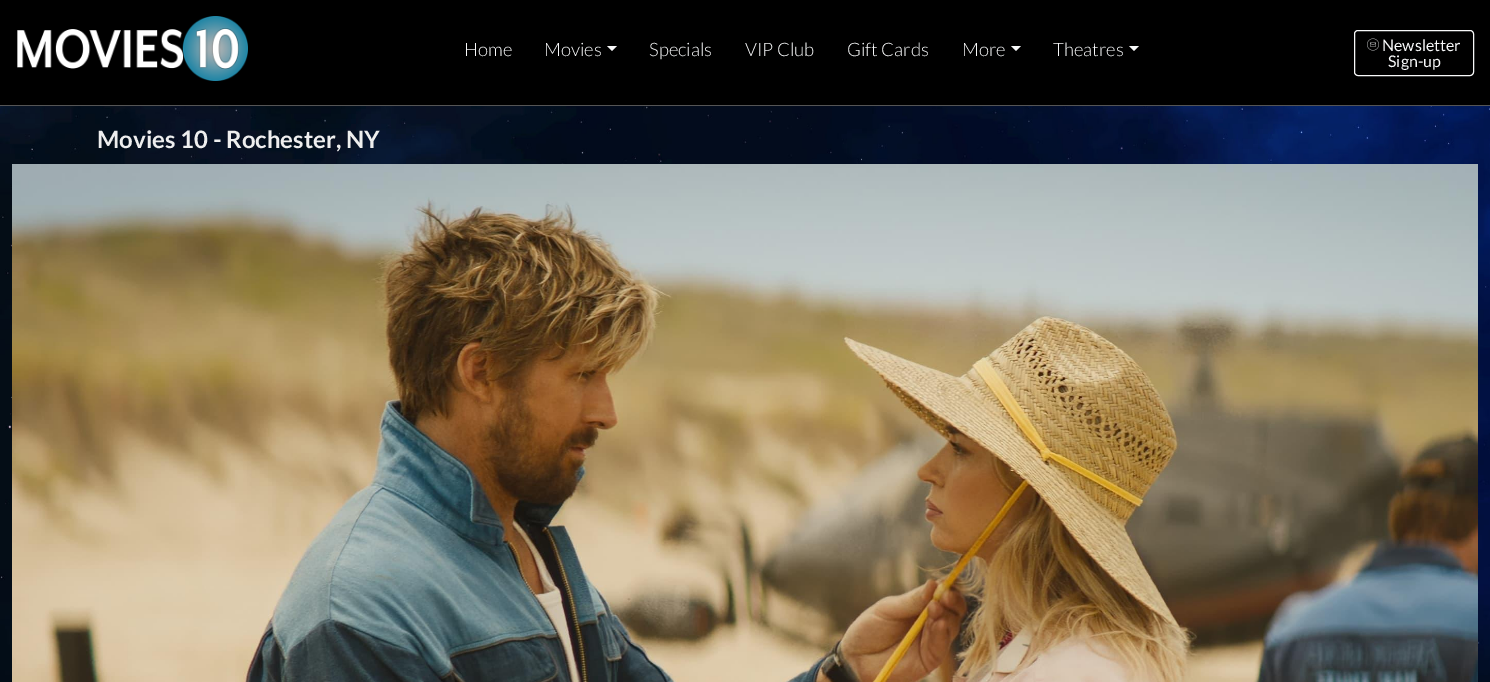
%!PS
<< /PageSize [1490 682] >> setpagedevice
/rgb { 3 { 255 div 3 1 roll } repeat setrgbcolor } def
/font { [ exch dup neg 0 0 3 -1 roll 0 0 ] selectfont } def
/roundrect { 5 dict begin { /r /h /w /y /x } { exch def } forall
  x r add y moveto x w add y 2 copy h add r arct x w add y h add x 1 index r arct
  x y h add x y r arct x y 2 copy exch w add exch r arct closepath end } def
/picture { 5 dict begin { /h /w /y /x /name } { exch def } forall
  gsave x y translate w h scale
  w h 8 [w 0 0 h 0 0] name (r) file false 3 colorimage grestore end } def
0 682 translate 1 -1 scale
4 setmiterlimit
255 255 255 rgb
0 0 1490 682 rectfill
(img/1.rgb) 0 106 1490 576 picture
0 0 0 rgb
0 0 1490 105 rectfill
85 85 85 rgb
0 105 1490 1 rectfill
(img/2.rgb) 17 16 231 65 picture
248 249 250 rgb
607 46 moveto 617 46 lineto 612 51 lineto closepath fill
1011 46 moveto 1021 46 lineto 1016 51 lineto closepath fill
1129 46 moveto 1139 46 lineto 1134 51 lineto closepath fill
1354.5 30.5 119 45 3.5 roundrect stroke
(img/3.rgb) 1367 38 12 13 picture
(img/4.rgb) 12 164 1466 518 picture
/Lato-Light 18.5 font
[
  [(Home) 464 56]
  [(Movies) 544 56]
  [(Specials) 649 56]
  [(VIP Club) 745 56]
  [(Gift Cards) 847 56]
  [(More) 962 56]
  [(Theatres) 1053 56]
] { aload pop moveto show } forall
/Lato-Regular 16 font
1382 51 moveto (Newsletter) show
1388 67 moveto (Sign-up) show
/Lato-Bold 24 font
238 238 238 rgb
97 148 moveto (Movies 10 - Rochester, NY) show
showpage
